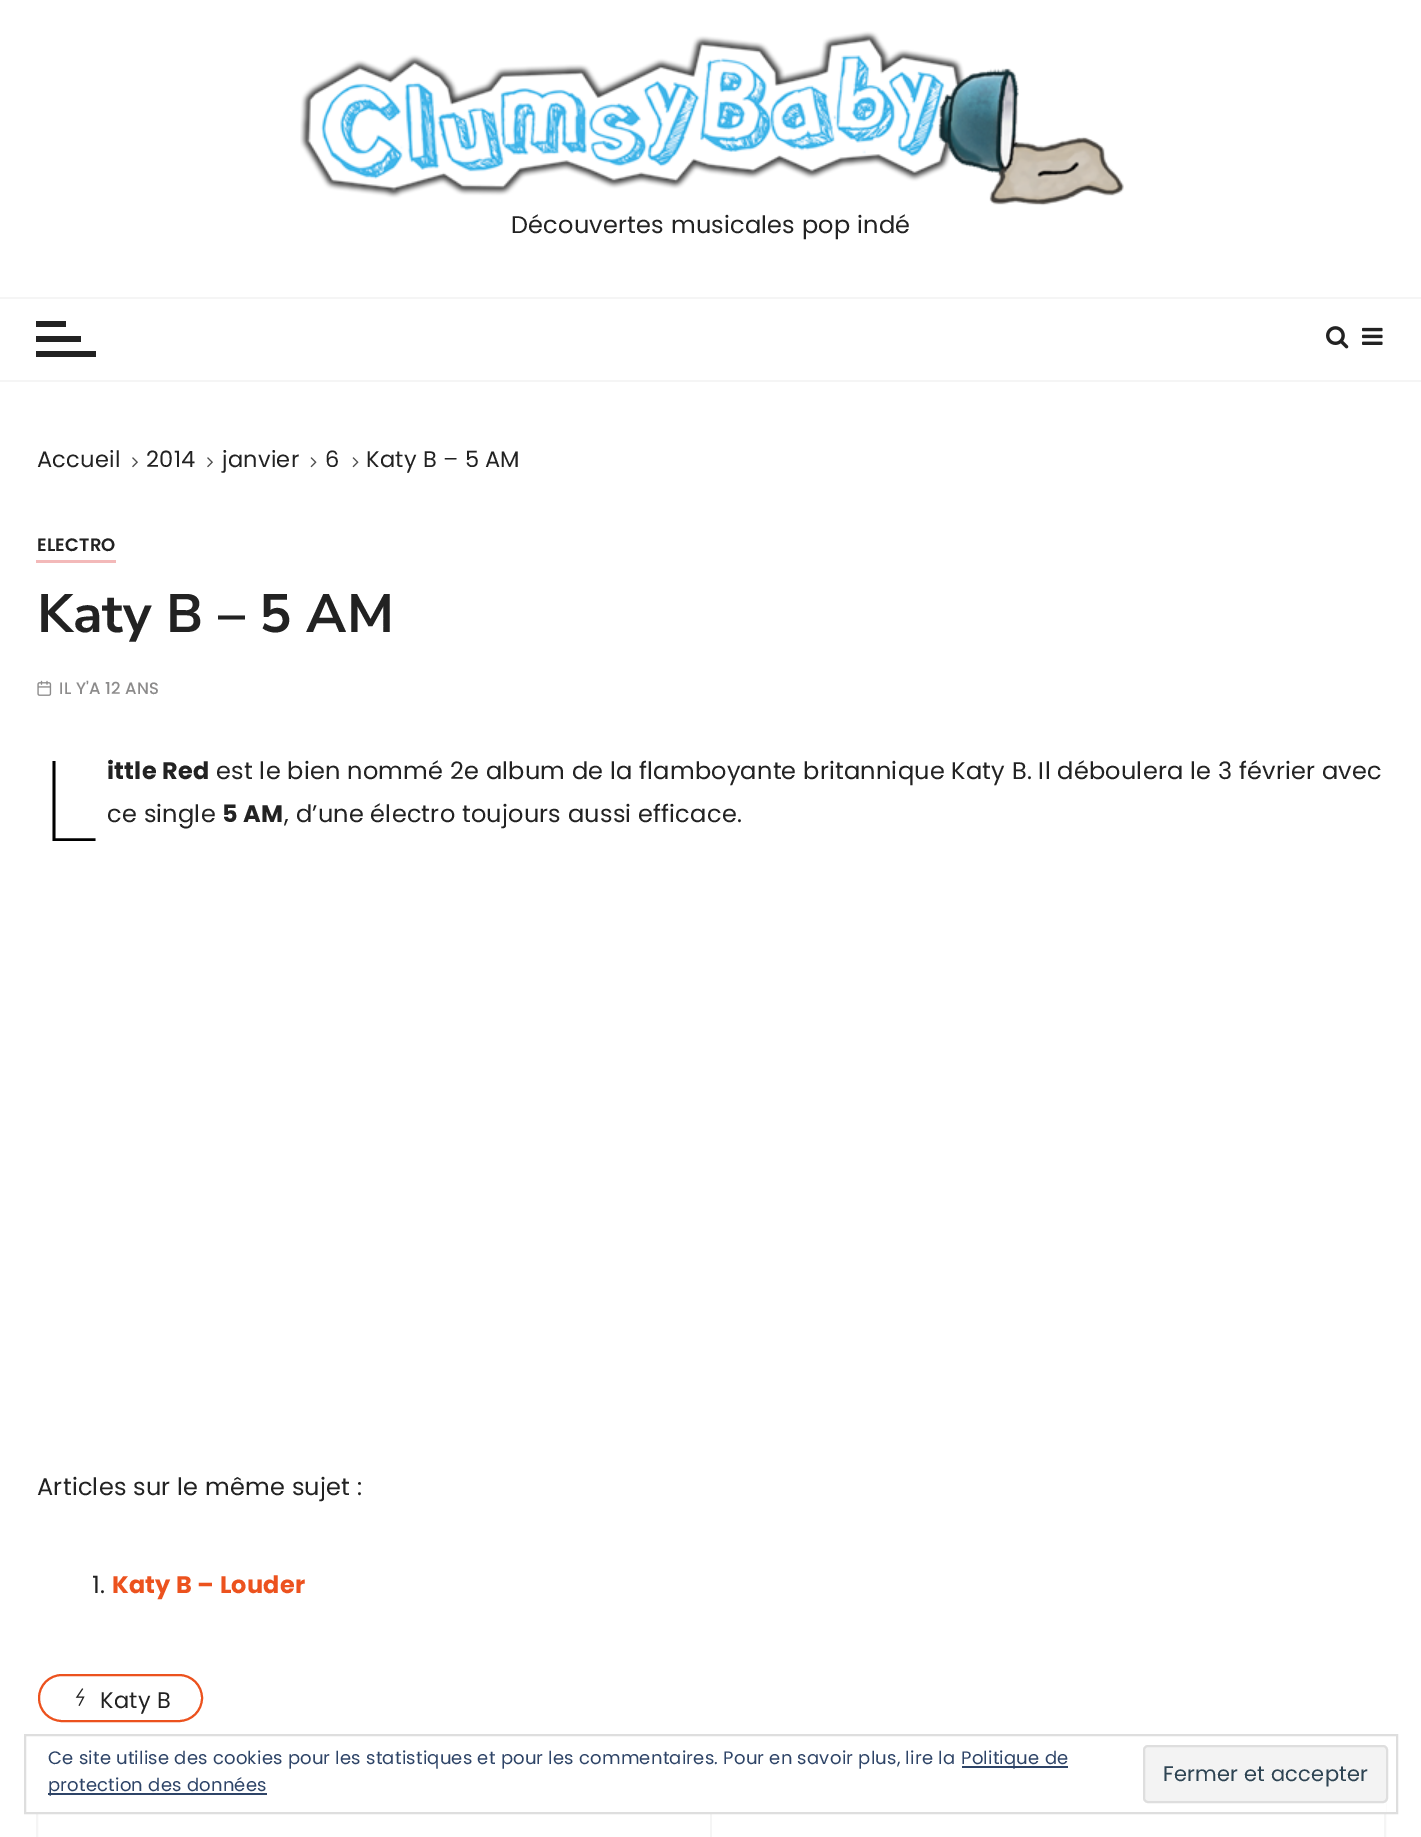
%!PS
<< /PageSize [1421 1837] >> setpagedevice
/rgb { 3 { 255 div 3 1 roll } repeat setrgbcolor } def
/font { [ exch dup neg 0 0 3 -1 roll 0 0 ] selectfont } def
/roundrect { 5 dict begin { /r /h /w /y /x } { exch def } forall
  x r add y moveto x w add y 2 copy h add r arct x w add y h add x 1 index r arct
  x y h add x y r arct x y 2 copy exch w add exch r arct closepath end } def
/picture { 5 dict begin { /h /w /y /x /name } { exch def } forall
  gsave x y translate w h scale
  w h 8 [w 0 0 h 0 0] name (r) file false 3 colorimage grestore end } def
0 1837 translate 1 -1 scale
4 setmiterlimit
255 255 255 rgb
0 0 1421 1837 rectfill
(img/1.rgb) 300 31 824 175 picture
[
  [0 297 1421 2 245 245 245]
  [0 380 1421 2 245 245 245]
  [36 321 30 6 34 34 34]
  [36 336 45 6 34 34 34]
  [36 351 60 6 34 34 34]
] { aload pop rgb rectfill } forall
(img/2.rgb) 1326 326 23 23 picture
(img/3.rgb) 1362 327 21 18 picture
(img/4.rgb) 132 457 6 11 picture
(img/4.rgb) 207 457 6 11 picture
(img/5.rgb) 310 457 7 11 picture
(img/5.rgb) 352 457 7 11 picture
243 185 185 rgb
36 560 80 3 rectfill
(img/6.rgb) 37 680 15 16 picture
236 82 30 rgb
2 setlinewidth
39 1675 163 46 23 roundrect stroke
(img/7.rgb) 75 1688 10 18 picture
245 245 245 rgb
37 1783 1348 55 rectstroke
710 1814 2 23 rectfill
255 255 255 rgb
36 1782 1350 30 rectfill
222 222 222 rgb
25 1735 1372 78 rectstroke
46 68 103 rgb
962 1766 106 2 rectfill
48 1793 219 2 rectfill
243 243 243 rgb
1144 1746 243 56 4 roundrect gsave fill grestore
222 222 222 rgb
stroke
/Poppins-Regular 24 font
34 34 34 rgb
511 233 moveto 0.22 0 (Découvertes musicales pop indé) ashow
/Poppins-Regular 22.5 font
37 467 moveto 0.22 0 (Accueil) ashow
146 467 moveto 0.22 0 (2014) ashow
222 467 moveto 0.22 0 (janvier) ashow
325 467 moveto 0.22 0 (6) ashow
366 467 moveto 0.22 0 (Katy B – 5 AM) ashow
/Poppins-SemiBold 18 font
37 551 moveto 0.22 0 (ELECTRO) ashow
/NunitoSans-Bold 54 font
37 632 moveto (Katy B – 5 AM) show
/Poppins-Medium 16.5 font
140 139 139 rgb
59 694 moveto 0.22 0 (IL Y'A 12 ANS) ashow
/NotoSans-Thin 112 font
0 0 0 rgb
41 841 moveto 0.22 0 (L) ashow
/Poppins-Bold 24 font
34 34 34 rgb
107 779 moveto 0.22 0 (ittle Red) ashow
/Poppins-Regular 24 font
216 779 moveto 0.22 0 (est le bien nommé 2e album de la flamboyante britannique Katy B. Il déboulera le 3 février avec) ashow
107 822 moveto 0.22 0 (ce single) ashow
/Poppins-Bold 24 font
222 822 moveto 0.22 0 (5 AM) ashow
/Poppins-Regular 24 font
284 822 moveto 0.22 0 (, d’une électro toujours aussi efficace.) ashow
37 1495 moveto 0.22 0 (Articles sur le même sujet :) ashow
92 1593 moveto 0.22 0 (1.) ashow
/Poppins-Bold 24 font
236 82 30 rgb
112 1593 moveto 0.22 0 (Katy B – Louder) ashow
/Poppins-Regular 22.5 font
34 34 34 rgb
100 1708 moveto 0.22 0 (Katy B) ashow
/Poppins-Regular 18 font
46 68 103 rgb
48 1764 moveto 0.22 0 (Ce site utilise des cookies pour les statistiques et pour les commentaires. Pour en savoir plus, lire la) ashow
961 1764 moveto 0.22 0 (Politique de) ashow
48 1791 moveto 0.22 0 (protection des données) ashow
/Poppins-Regular 21 font
46 68 83 rgb
1163 1781 moveto 0.22 0 (Fermer et accepter) ashow
showpage
